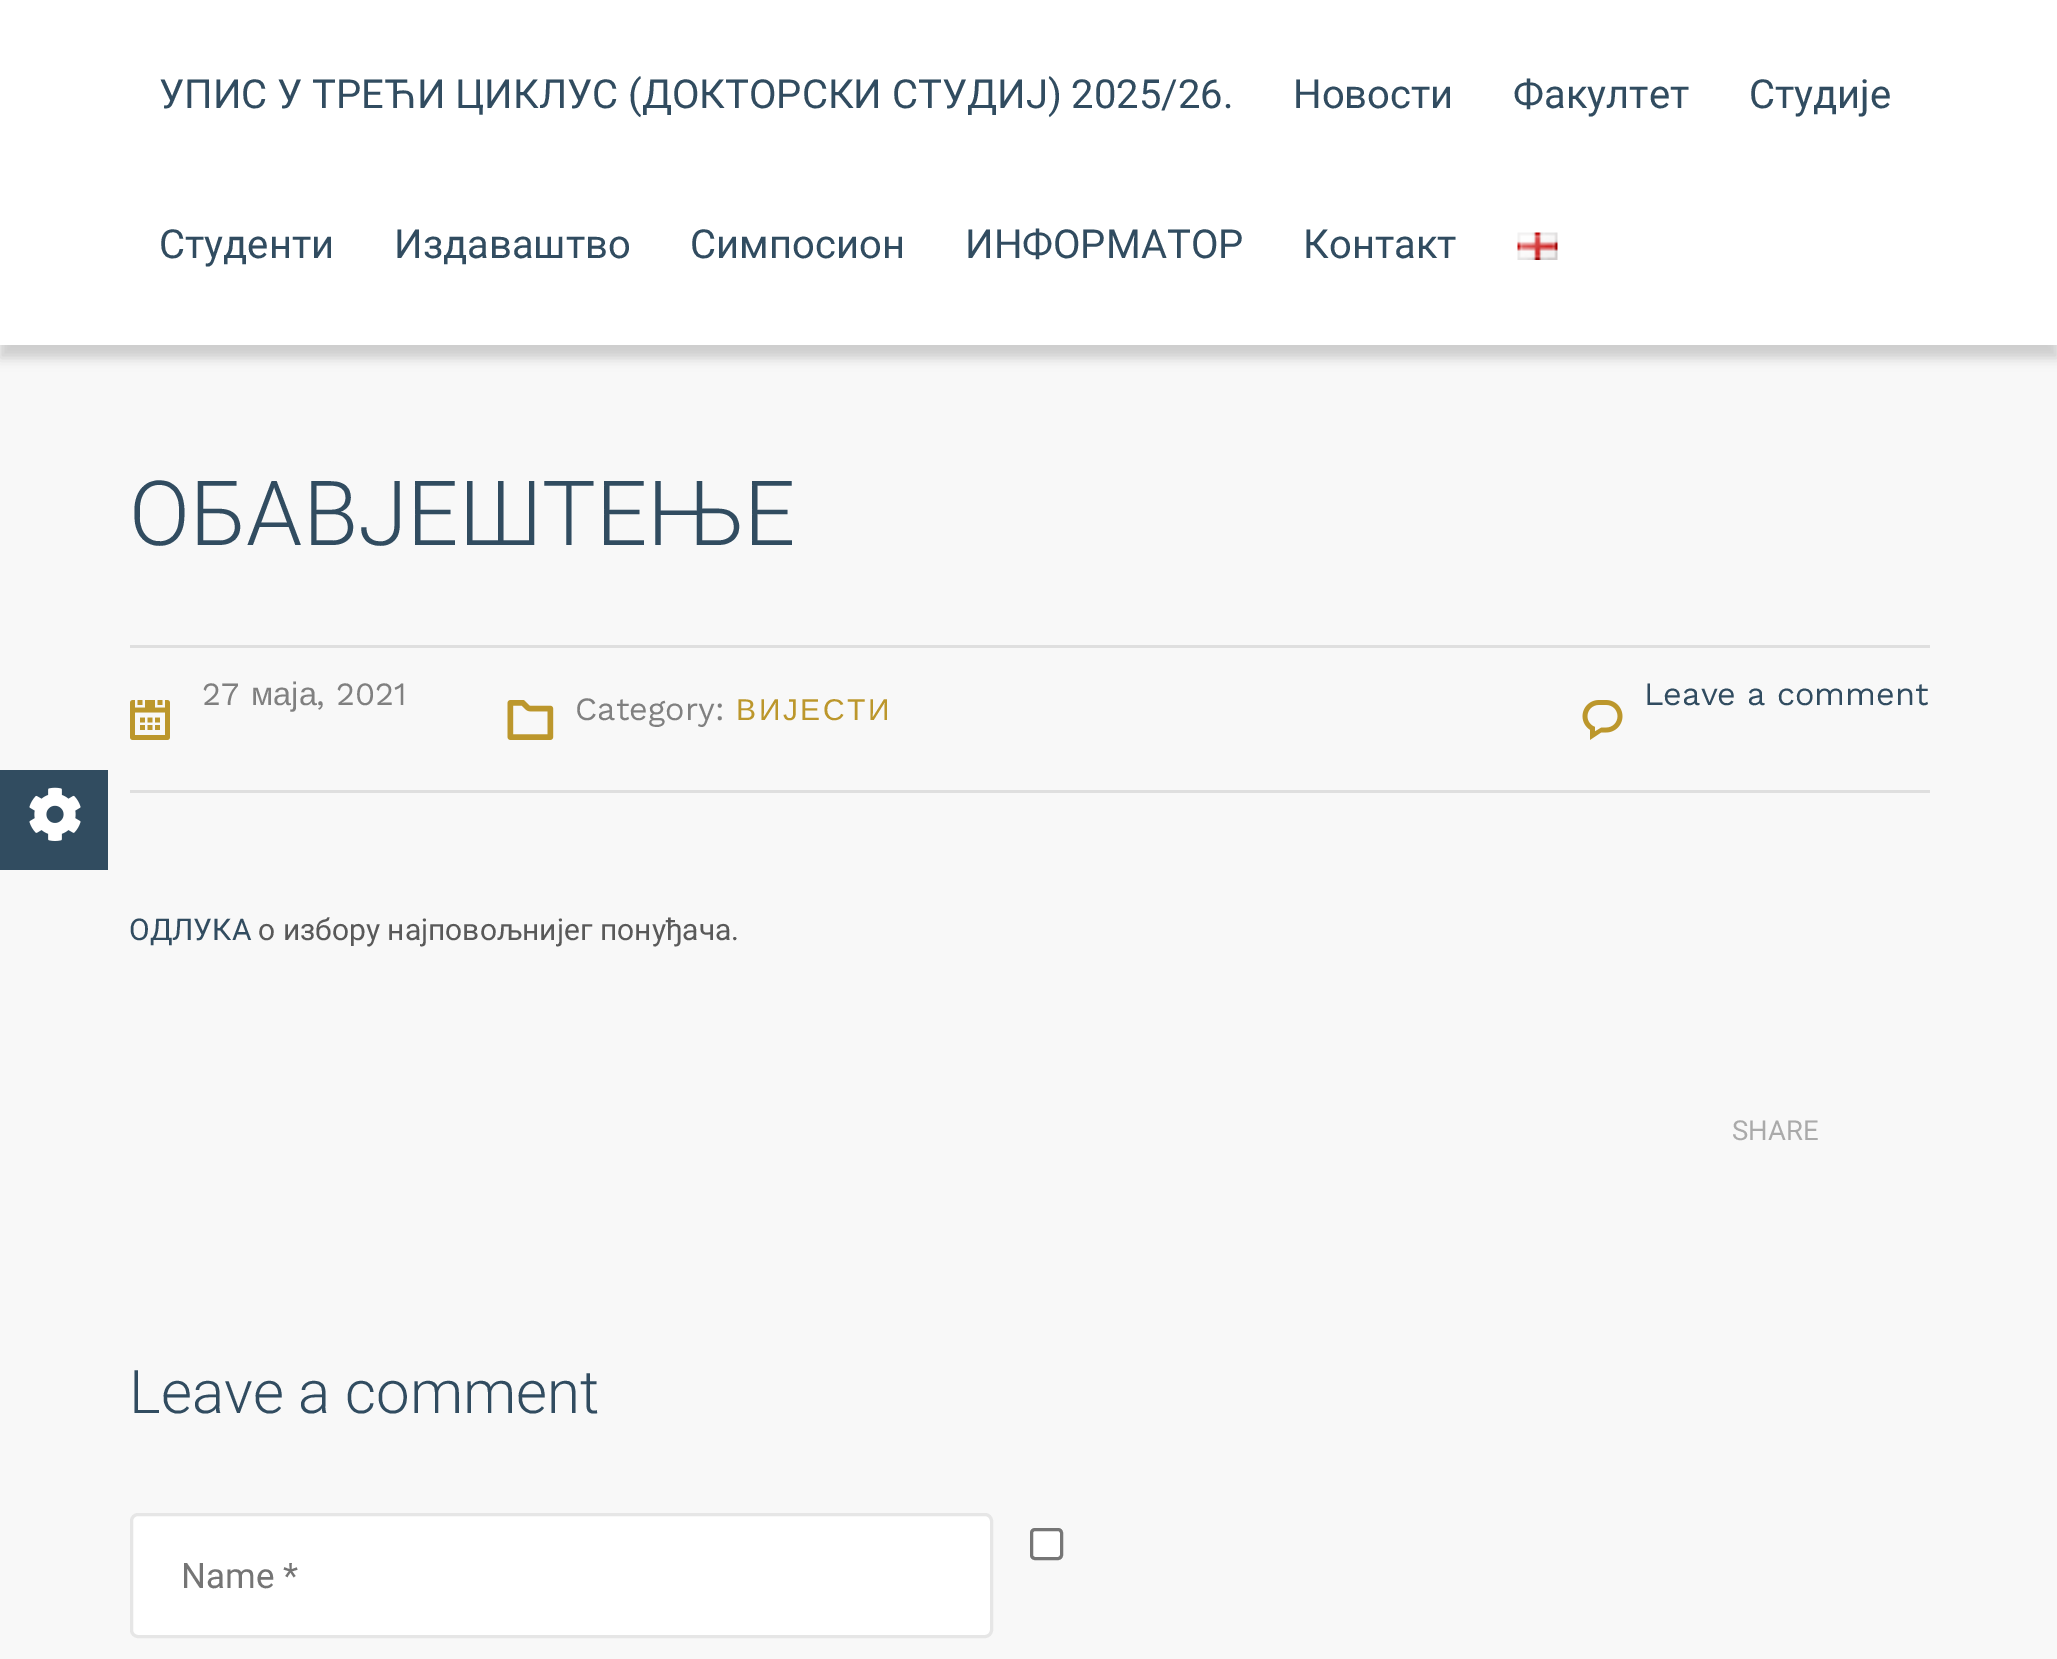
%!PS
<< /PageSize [2057 1659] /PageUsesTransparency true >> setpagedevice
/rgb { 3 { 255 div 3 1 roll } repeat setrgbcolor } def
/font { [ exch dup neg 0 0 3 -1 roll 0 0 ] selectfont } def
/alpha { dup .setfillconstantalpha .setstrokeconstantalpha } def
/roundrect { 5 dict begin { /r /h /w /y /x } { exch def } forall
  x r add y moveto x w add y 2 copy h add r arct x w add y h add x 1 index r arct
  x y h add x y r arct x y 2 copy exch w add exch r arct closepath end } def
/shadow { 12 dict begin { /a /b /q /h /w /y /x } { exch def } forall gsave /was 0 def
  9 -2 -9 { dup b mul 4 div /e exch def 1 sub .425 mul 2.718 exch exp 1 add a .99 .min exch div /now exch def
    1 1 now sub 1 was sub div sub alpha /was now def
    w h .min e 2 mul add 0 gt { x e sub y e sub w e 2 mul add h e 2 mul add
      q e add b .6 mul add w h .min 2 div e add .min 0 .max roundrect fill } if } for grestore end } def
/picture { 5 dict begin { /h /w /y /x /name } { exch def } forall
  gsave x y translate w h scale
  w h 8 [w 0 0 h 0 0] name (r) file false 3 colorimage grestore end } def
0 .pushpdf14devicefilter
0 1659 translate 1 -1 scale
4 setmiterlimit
248 248 248 rgb
0 0 2057 1659 rectfill
49 76 96 rgb
0 770 108 100 rectfill
(img/1.rgb) 29 787 52 54 picture
204 204 204 rgb
0 -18 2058 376 0 6 1 shadow
255 255 255 rgb
0 0 2057 345 rectfill
(img/2.rgb) 1517 232 41 28 picture
223 223 223 rgb
130 645 1800 3 rectfill
130 790 1800 3 rectfill
(img/3.rgb) 130 700 40 40 picture
(img/4.rgb) 1582 700 41 40 picture
(img/5.rgb) 507 700 47 40 picture
255 255 255 rgb
1031.5 1529.5 30 29 3.5 roundrect gsave fill grestore
118 118 118 rgb
3 setlinewidth
stroke
255 255 255 rgb
131.5 1514.5 860 122 6.5 roundrect gsave fill grestore
230 230 230 rgb
stroke
/Roboto-Regular 40 font
49 76 96 rgb
[
  [(УПИС У ТРЕЋИ ЦИКЛУС \(ДОКТОРСКИ СТУДИЈ\) 2025/26.) 159 108]
  [(Новости) 1293 108]
  [(Факултет) 1513 108]
  [(Студије) 1749 108]
  [(Студенти) 159 258]
  [(Издаваштво) 394 258]
  [(Симпосион) 690 258]
  [(ИНФОРМАТОР) 965 258]
  [(Контакт) 1303 258]
] { aload pop moveto show } forall
/Roboto-Light 90 font
129 545 moveto (ОБАВЈЕШТЕЊЕ) show
/WorkSans-Regular 32.5 font
128 128 128 rgb
202 705 moveto (27) show
/LiberationSans-Regular 32.5 font
251 705 moveto (маја) show
/WorkSans-Regular 32.5 font
316 705 moveto (, 2021) show
49 76 96 rgb
1644 705 moveto (Leave a comment) show
128 128 128 rgb
575 720 moveto (Category:) show
/LiberationSans-Regular 30 font
188 151 44 rgb
736 720 moveto 2.5 0 (ВИЈЕСТИ) ashow
/Roboto-Regular 30 font
49 76 96 rgb
129 940 moveto (ОДЛУКА) show
89 89 89 rgb
258 940 moveto (о избору најповољнијег понуђача.) show
/Roboto-Regular 27.5 font
170 170 170 rgb
1732 1140 moveto (SHARE) show
/Roboto-Light 60 font
49 76 96 rgb
129 1413 moveto (Leave a comment) show
/Roboto-Regular 35 font
117 117 117 rgb
181 1588 moveto (Name *) show
.poppdf14devicefilter showpage
